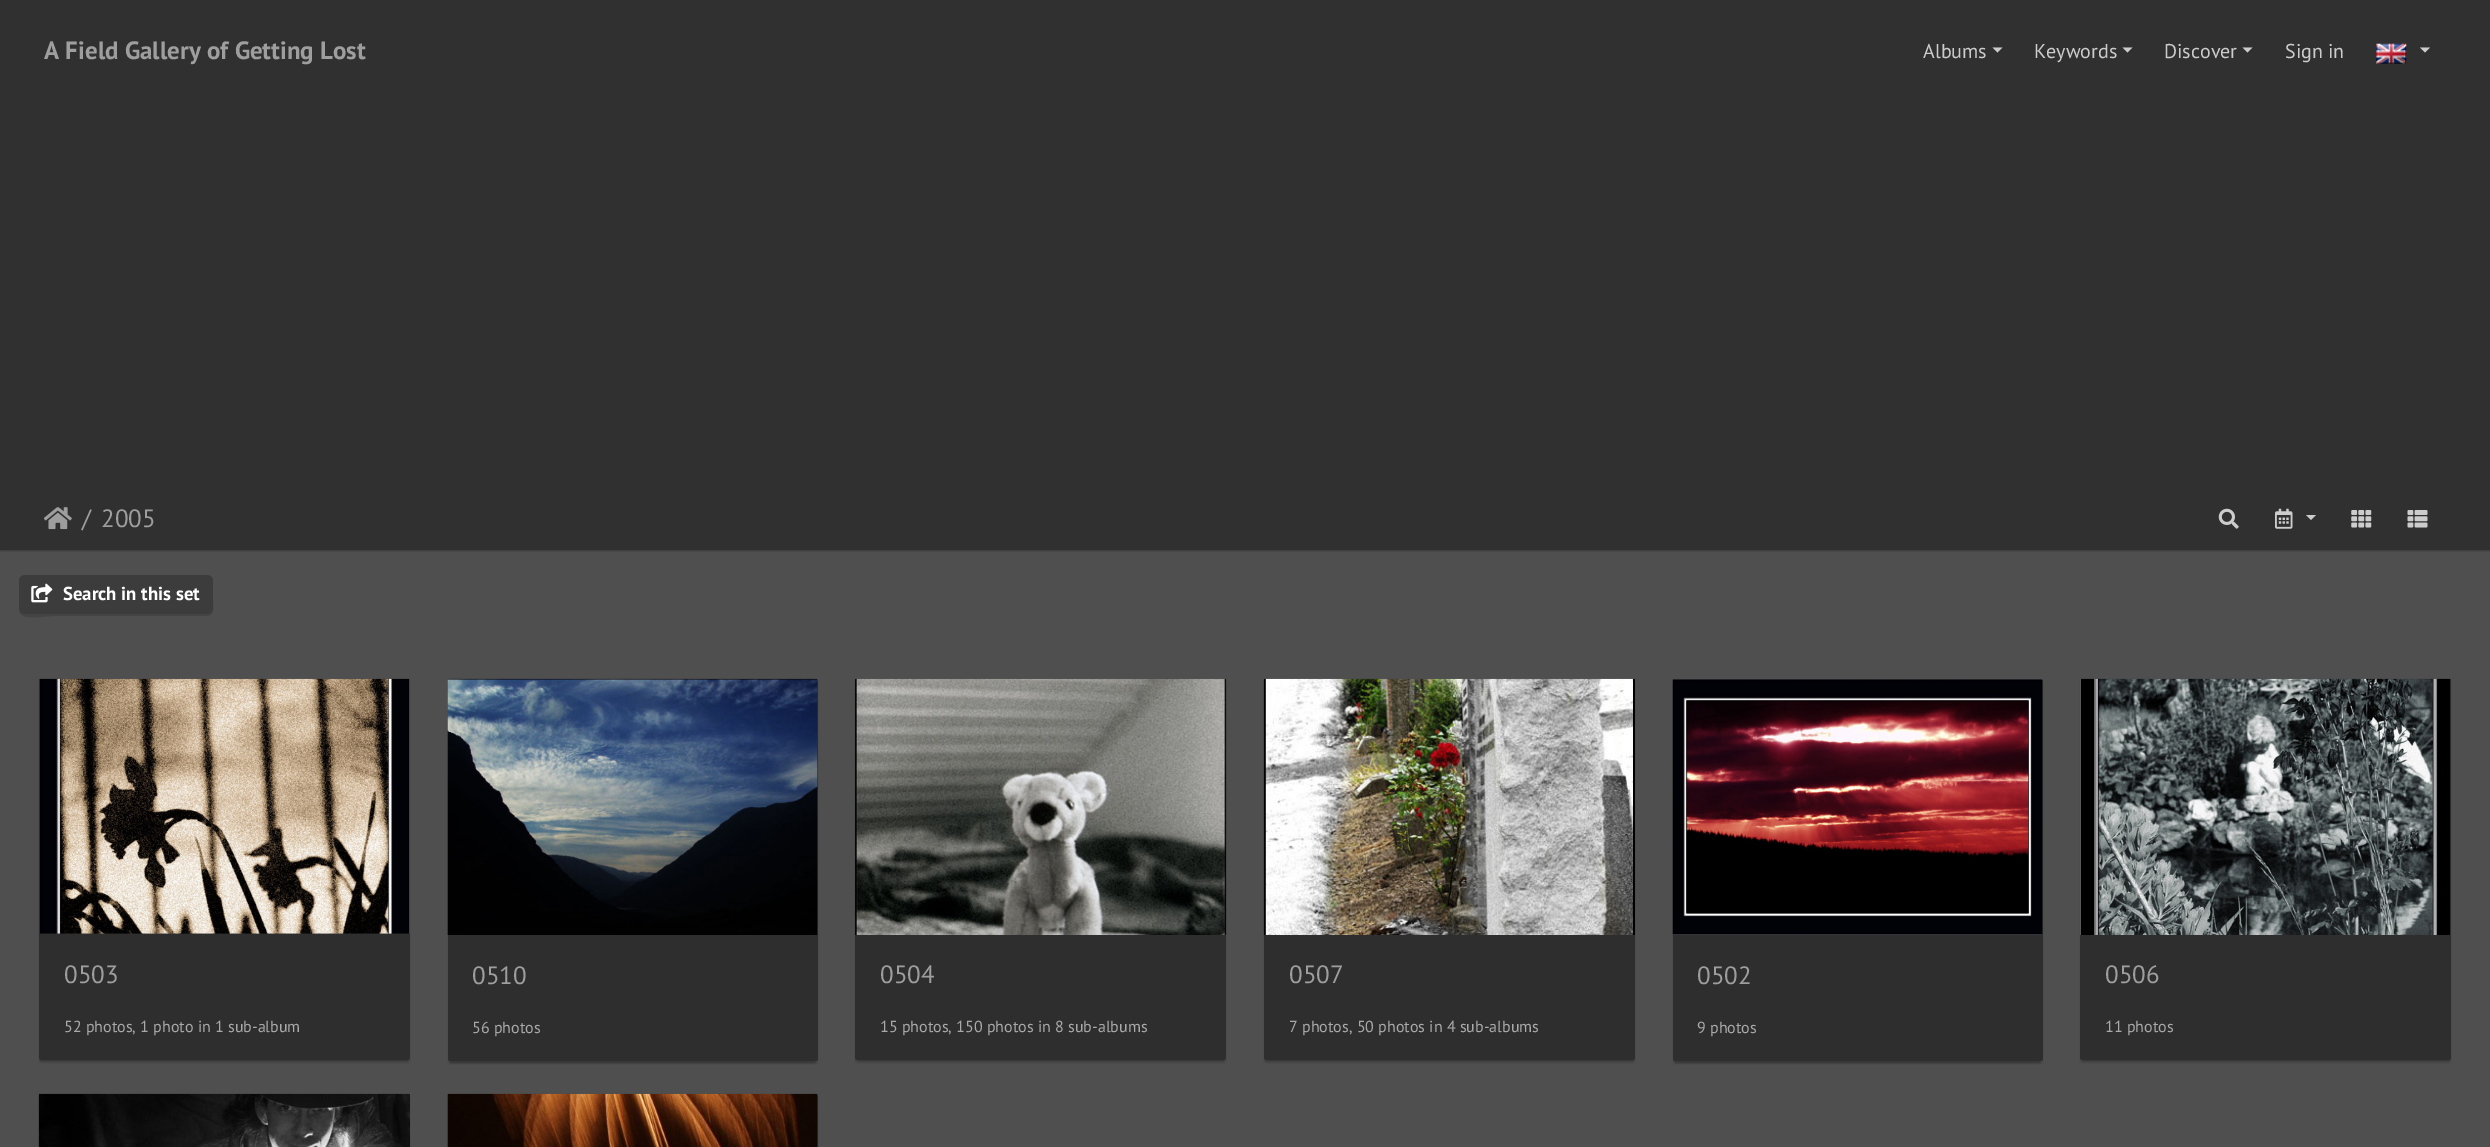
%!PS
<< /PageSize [2490 1147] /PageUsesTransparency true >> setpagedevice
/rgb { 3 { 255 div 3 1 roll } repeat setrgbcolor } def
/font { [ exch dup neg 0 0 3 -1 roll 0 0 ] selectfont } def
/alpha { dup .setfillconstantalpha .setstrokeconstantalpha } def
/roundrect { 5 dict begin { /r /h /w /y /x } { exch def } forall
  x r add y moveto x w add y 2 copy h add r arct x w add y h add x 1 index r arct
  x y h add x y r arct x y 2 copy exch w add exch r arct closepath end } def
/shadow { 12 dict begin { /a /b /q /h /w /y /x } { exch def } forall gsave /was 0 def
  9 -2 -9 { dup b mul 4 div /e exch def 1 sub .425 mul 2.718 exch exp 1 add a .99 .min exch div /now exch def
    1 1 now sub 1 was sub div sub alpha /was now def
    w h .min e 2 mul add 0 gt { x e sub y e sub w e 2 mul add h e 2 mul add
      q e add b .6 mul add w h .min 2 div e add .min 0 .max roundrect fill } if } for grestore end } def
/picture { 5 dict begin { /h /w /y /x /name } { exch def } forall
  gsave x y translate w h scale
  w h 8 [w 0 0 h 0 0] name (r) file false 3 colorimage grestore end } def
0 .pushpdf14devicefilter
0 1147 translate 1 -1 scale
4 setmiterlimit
79 79 79 rgb
0 0 2490 1147 rectfill
48 48 48 rgb
0 0 2490 550 rectfill
204 204 204 rgb
1992.5 47.5 moveto 2002.5 47.5 lineto 1997.5 52.5 lineto closepath fill
2122.5 47.5 moveto 2132.5 47.5 lineto 2127.5 52.5 lineto closepath fill
2242.5 47.5 moveto 2252.5 47.5 lineto 2247.5 52.5 lineto closepath fill
(img/1.rgb) 2376 43 31 21 picture
2420 47.5 moveto 2430 47.5 lineto 2425 52.5 lineto closepath fill
gsave
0 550 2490 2 rectclip
0 0 0 rgb
0 488 2490 63 0 1 0.24 shadow
grestore
(img/2.rgb) 44 507 28 23 picture
(img/3.rgb) 2218 508 21 21 picture
(img/4.rgb) 2275 508 18 21 picture
2306 515 moveto 2316 515 lineto 2311 520 lineto closepath fill
(img/5.rgb) 2351 510 21 18 picture
(img/6.rgb) 2407 510 21 18 picture
68 68 68 rgb
19 609 moveto 19 622 42 616 55 616 curveto 207 616 lineto 215 616 213 606 213 601 curveto 212 582 lineto 212 608 lineto 212 611 210 614 206 614 curveto 25 614 lineto 22 614 20 612 19 609 curveto closepath fill
60 60 60 rgb
19 575 194 39 6 roundrect fill
(img/7.rgb) 31 583 22 20 picture
0 0 0 rgb
41 685 367 376 0 0.5 0.2 shadow
39 681 371 382 2.5 1 0.14 shadow
46 46 46 rgb
39 679 371 381 2.5 roundrect fill
(img/8.rgb) 39 678 371 256 picture
0 0 0 rgb
450 685 365 378 0 0.5 0.2 shadow
448 681 370 383 2.5 1 0.14 shadow
46 46 46 rgb
448 679 370 382 2.5 roundrect fill
(img/9.rgb) 447 678 371 257 picture
0 0 0 rgb
858 685 366 376 0 0.5 0.2 shadow
855 681 371 382 2.5 1 0.14 shadow
46 46 46 rgb
855 679 371 381 2.5 roundrect fill
(img/10.rgb) 855 678 372 257 picture
0 0 0 rgb
1266 685 367 376 0 0.5 0.2 shadow
1264 681 371 382 2.5 1 0.14 shadow
46 46 46 rgb
1264 679 371 381 2.5 roundrect fill
(img/11.rgb) 1263 678 372 257 picture
0 0 0 rgb
1675 685 365 378 0 0.5 0.2 shadow
1673 681 370 383 2.5 1 0.14 shadow
46 46 46 rgb
1673 679 370 382 2.5 roundrect fill
(img/12.rgb) 1672 679 371 256 picture
0 0 0 rgb
2083 685 366 376 0 0.5 0.2 shadow
2080 681 371 382 2.5 1 0.14 shadow
46 46 46 rgb
2080 679 371 381 2.5 roundrect fill
(img/13.rgb) 2080 678 371 257 picture
0 0 0 rgb
39 1096 371 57 2.5 1 0.14 shadow
(img/14.rgb) 38 1093 372 54 picture
448 1096 370 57 2.5 1 0.14 shadow
46 46 46 rgb
448 1094 370 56 2.5 roundrect fill
(img/15.rgb) 447 1093 371 54 picture
/PTSans-Bold 25 font
158 158 158 rgb
44 59 moveto (A Field Gallery of Getting Lost) show
/PTSans-Regular 20 font
204 204 204 rgb
[
  [(Albums) 1923 58]
  [(Keywords) 2034 58]
  [(Discover) 2164 58]
  [(Sign in) 2285 58]
] { aload pop moveto show } forall
/PTSans-Regular 25 font
158 158 158 rgb
82 527 moveto (/) show
101 527 moveto (2005) show
/PTSans-Bold 18.75 font
255 255 255 rgb
63 600 moveto (Search in this set) show
/PTSans-Regular 25 font
158 158 158 rgb
64 983 moveto (0503) show
/PTSans-Regular 16 font
169 169 169 rgb
64 1032 moveto (52 photos, 1 photo in 1 sub-album) show
/PTSans-Regular 25 font
158 158 158 rgb
472 984 moveto (0510) show
/PTSans-Regular 16 font
169 169 169 rgb
472 1033 moveto (56 photos) show
/PTSans-Regular 25 font
158 158 158 rgb
880 983 moveto (0504) show
/PTSans-Regular 16 font
169 169 169 rgb
880 1032 moveto (15 photos, 150 photos in 8 sub-albums) show
/PTSans-Regular 25 font
158 158 158 rgb
1289 983 moveto (0507) show
/PTSans-Regular 16 font
169 169 169 rgb
1289 1032 moveto (7 photos, 50 photos in 4 sub-albums) show
/PTSans-Regular 25 font
158 158 158 rgb
1697 984 moveto (0502) show
/PTSans-Regular 16 font
169 169 169 rgb
1697 1033 moveto (9 photos) show
/PTSans-Regular 25 font
158 158 158 rgb
2105 983 moveto (0506) show
/PTSans-Regular 16 font
169 169 169 rgb
2105 1032 moveto (11 photos) show
.poppdf14devicefilter showpage
